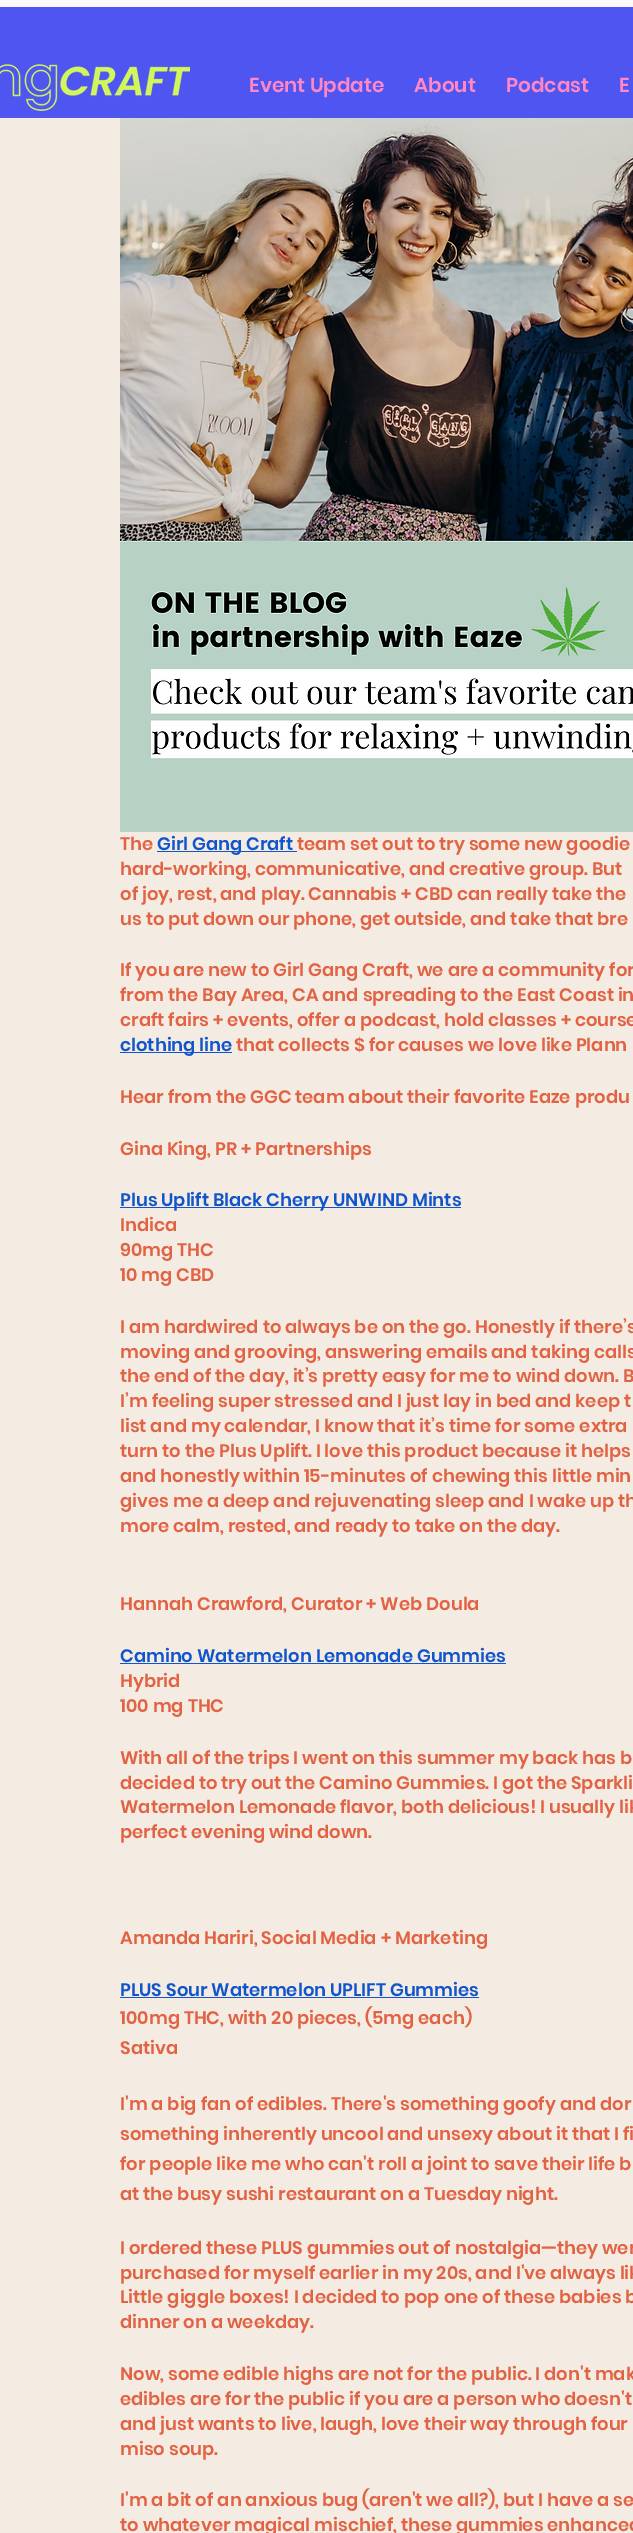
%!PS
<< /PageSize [633 2533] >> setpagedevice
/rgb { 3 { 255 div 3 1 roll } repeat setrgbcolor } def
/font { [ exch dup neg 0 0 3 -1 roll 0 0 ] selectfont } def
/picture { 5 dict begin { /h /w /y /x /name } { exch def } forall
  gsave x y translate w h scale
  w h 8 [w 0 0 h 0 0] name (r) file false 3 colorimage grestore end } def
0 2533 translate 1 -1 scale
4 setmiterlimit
244 236 226 rgb
0 0 633 2533 rectfill
78 85 240 rgb
0 7 633 111 rectfill
250 250 250 rgb
0 0 633 7 rectfill
(img/1.rgb) 0 64 190 47 picture
(img/2.rgb) 120 118 513 714 picture
[
  [157 851 140 1 17 85 204]
  [120 1052 112 1 17 85 204]
  [120 1207 341 1 17 85 204]
  [120 1663 386 1 17 85 204]
  [120 1997 359 1 17 85 204]
] { aload pop rgb rectfill } forall
/Poppins-SemiBold 20 font
255 135 196 rgb
[
  [(Event Update) 249 92]
  [(About) 414 92]
  [(Podcast) 506 92]
  [(E) 619 92]
] { aload pop moveto show } forall
/Poppins-SemiBold 18 font
226 99 68 rgb
120 850 moveto (The) show
17 85 204 rgb
157 850 moveto (Girl Gang Craft) show
226 99 68 rgb
[
  [(team set out to try some new goodie) 297 850]
  [(hard-working, communicative, and creative group. But) 120 875]
  [(of joy, rest, and play. Cannabis + CBD can really take the) 120 900]
  [(us to put down our phone, get outside, and take that bre) 120 925]
  [(If you are new to Girl Gang Craft, we are a community for) 120 976]
  [(from the Bay Area, CA and spreading to the East Coast in) 120 1001]
  [(craft fairs + events, offer a podcast, hold classes + course) 120 1026]
] { aload pop moveto show } forall
17 85 204 rgb
120 1051 moveto (clothing line) show
226 99 68 rgb
[
  [(that collects $ for causes we love like Plann) 236 1051]
  [(Hear from the GGC team about their favorite Eaze produ) 120 1103]
  [(Gina King, PR + Partnerships) 120 1155]
] { aload pop moveto show } forall
17 85 204 rgb
120 1206 moveto (Plus Uplift Black Cherry UNWIND Mints) show
226 99 68 rgb
[
  [(Indica) 120 1231]
  [(90mg THC) 120 1256]
  [(10 mg CBD) 120 1281]
  [(I am hardwired to always be on the go. Honestly if there’s) 120 1333]
  [(moving and grooving, answering emails and taking calls) 120 1358]
  [(the end of the day, it’s pretty easy for me to wind down. B) 120 1382]
  [(I’m feeling super stressed and I just lay in bed and keep t) 120 1407]
  [(list and my calendar, I know that it’s time for some extra) 120 1432]
  [(turn to the Plus Uplift. I love this product because it helps) 120 1457]
  [(and honestly within 15-minutes of chewing this little min) 120 1482]
  [(gives me a deep and rejuvenating sleep and I wake up th) 120 1507]
  [(more calm, rested, and ready to take on the day.) 120 1532]
  [(Hannah Crawford, Curator + Web Doula) 120 1610]
] { aload pop moveto show } forall
17 85 204 rgb
120 1662 moveto (Camino Watermelon Lemonade Gummies) show
226 99 68 rgb
[
  [(Hybrid) 120 1687]
  [(100 mg THC) 120 1712]
  [(With all of the trips I went on this summer my back has b) 120 1764]
  [(decided to try out the Camino Gummies. I got the Sparkli) 120 1789]
  [(Watermelon Lemonade flavor, both delicious! I usually lik) 120 1813]
  [(perfect evening wind down.) 120 1838]
  [(Amanda Hariri, Social Media + Marketing) 120 1944]
] { aload pop moveto show } forall
17 85 204 rgb
120 1996 moveto (PLUS Sour Watermelon UPLIFT Gummies) show
226 99 68 rgb
[
  [(100mg THC, with 20 pieces, \(5mg each\)) 120 2024]
  [(Sativa) 120 2054]
  [(I'm a big fan of edibles. There's something goofy and dor) 120 2110]
  [(something inherently uncool and unsexy about it that I fi) 120 2140]
  [(for people like me who can't roll a joint to save their life b) 120 2170]
  [(at the busy sushi restaurant on a Tuesday night.) 120 2200]
  [(I ordered these PLUS gummies out of nostalgia—they wer) 120 2254]
  [(purchased for myself earlier in my 20s, and I've always lik) 120 2279]
  [(Little giggle boxes! I decided to pop one of these babies b) 120 2303]
  [(dinner on a weekday.) 120 2328]
  [(Now, some edible highs are not for the public. I don't mak) 120 2380]
  [(edibles are for the public if you are a person who doesn't) 120 2405]
  [(and just wants to live, laugh, love their way through four) 120 2430]
  [(miso soup.) 120 2455]
  [(I'm a bit of an anxious bug \(aren't we all?\), but I have a se) 120 2506]
  [(to whatever magical mischief, these gummies enhanced) 120 2531]
] { aload pop moveto show } forall
showpage
